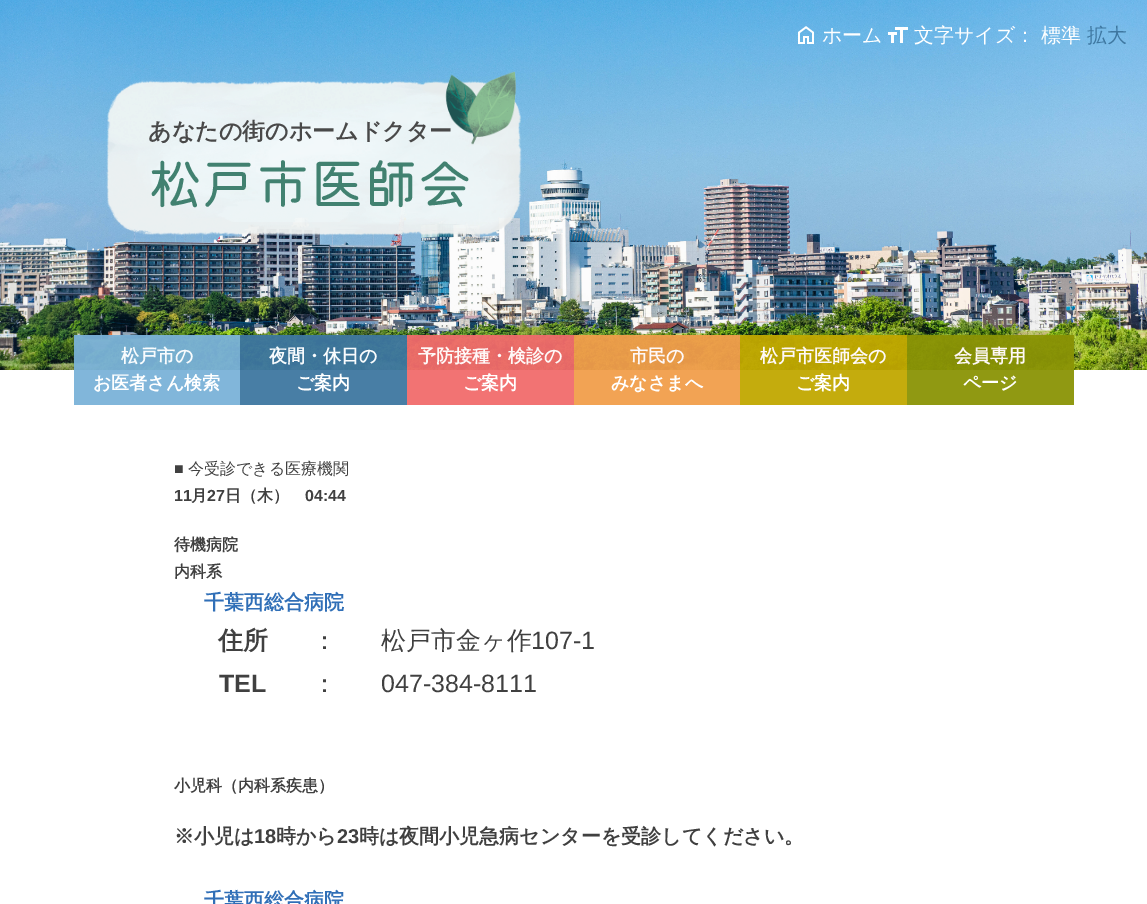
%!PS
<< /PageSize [1147 904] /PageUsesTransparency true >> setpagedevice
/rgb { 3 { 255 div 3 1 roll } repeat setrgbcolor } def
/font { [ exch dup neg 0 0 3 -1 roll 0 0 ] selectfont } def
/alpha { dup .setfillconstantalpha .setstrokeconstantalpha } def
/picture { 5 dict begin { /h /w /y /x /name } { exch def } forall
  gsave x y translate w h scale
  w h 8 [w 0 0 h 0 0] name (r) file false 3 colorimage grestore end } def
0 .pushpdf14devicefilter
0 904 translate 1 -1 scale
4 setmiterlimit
255 255 255 rgb
0 0 1147 904 rectfill
(img/1.rgb) 0 0 1147 370 picture
(img/2.rgb) 798 26 16 18 picture
(img/3.rgb) 888 27 20 16 picture
(img/4.rgb) 106 71 416 165 picture
0.95 alpha
[
  [74 335 166 70 122 178 216]
  [240 335 167 70 62 119 160]
  [407 335 167 70 241 107 107]
  [574 335 166 70 241 158 75]
  [740 335 167 70 193 168 0]
  [907 335 167 70 138 147 5]
] { aload pop rgb rectfill } forall
/WenQuanYiZenHei-Medium 20 font
1 alpha
255 255 255 rgb
[
  [(ホーム) 822 42]
  [(文字サイズ：) 914 42]
  [(標準) 1041 42]
] { aload pop moveto show } forall
62 119 160 rgb
1087 42 moveto (拡大) show
/WenQuanYiZenHei-Bold 23 font
73 73 73 rgb
148 139 moveto (あなたの街のホームドクター) show
/KiwiMaru-Regular 54 font
65 129 112 rgb
148 204 moveto (松戸市医師会) show
/WenQuanYiZenHei-Bold 18 font
248 251 253 rgb
121 362 moveto (松戸市の) show
255 255 255 rgb
93 389 moveto (お医者さん検索) show
248 251 253 rgb
269 362 moveto (夜間・休日の) show
255 255 255 rgb
296 389 moveto (ご案内) show
254 248 247 rgb
418 362 moveto (予防接種・検診の) show
255 255 255 rgb
463 389 moveto (ご案内) show
254 248 247 rgb
630 362 moveto (市民の) show
255 255 255 rgb
611 389 moveto (みなさまへ) show
254 248 247 rgb
760 362 moveto (松戸市医師会の) show
255 255 255 rgb
796 389 moveto (ご案内) show
254 248 247 rgb
954 362 moveto (会員専用) show
255 255 255 rgb
963 389 moveto (ページ) show
/LiberationSans-Regular 16 font
64 64 64 rgb
174 474 moveto (■) show
/WenQuanYiZenHei-Medium 16 font
188 474 moveto (今受診できる医療機関) show
/LiberationSans-Bold 16 font
174 501 moveto (11) show
/WenQuanYiZenHei-Bold 16 font
191 501 moveto (月) show
/LiberationSans-Bold 16 font
207 501 moveto (27) show
/WenQuanYiZenHei-Bold 16 font
225 501 moveto (日（木）) show
/LiberationSans-Bold 16 font
305 501 moveto (04:44) show
/WenQuanYiZenHei-Bold 16 font
174 550 moveto (待機病院) show
174 577 moveto (内科系) show
/WenQuanYiZenHei-Bold 20 font
48 111 183 rgb
204 609 moveto (千葉西総合病院) show
/WenQuanYiZenHei-Bold 25 font
64 64 64 rgb
218 649 moveto (住所) show
/WenQuanYiZenHei-Medium 25 font
312 649 moveto (：) show
381 649 moveto (松戸市金ヶ作) show
/LiberationSans-Regular 25 font
531 649 moveto (107-1) show
/LiberationSans-Bold 25 font
219 692 moveto (TEL) show
/WenQuanYiZenHei-Medium 25 font
312 692 moveto (：) show
/LiberationSans-Regular 25 font
381 692 moveto (047-384-8111) show
/WenQuanYiZenHei-Bold 16 font
174 791 moveto (小児科（内科系疾患）) show
/WenQuanYiZenHei-Bold 20 font
174 843 moveto (※小児は) show
/LiberationSans-Bold 20 font
254 843 moveto (18) show
/WenQuanYiZenHei-Bold 20 font
276 843 moveto (時から) show
/LiberationSans-Bold 20 font
337 843 moveto (23) show
/WenQuanYiZenHei-Bold 20 font
359 843 moveto (時は夜間小児急病センターを受診してください。) show
48 111 183 rgb
204 907 moveto (千葉西総合病院) show
.poppdf14devicefilter showpage
